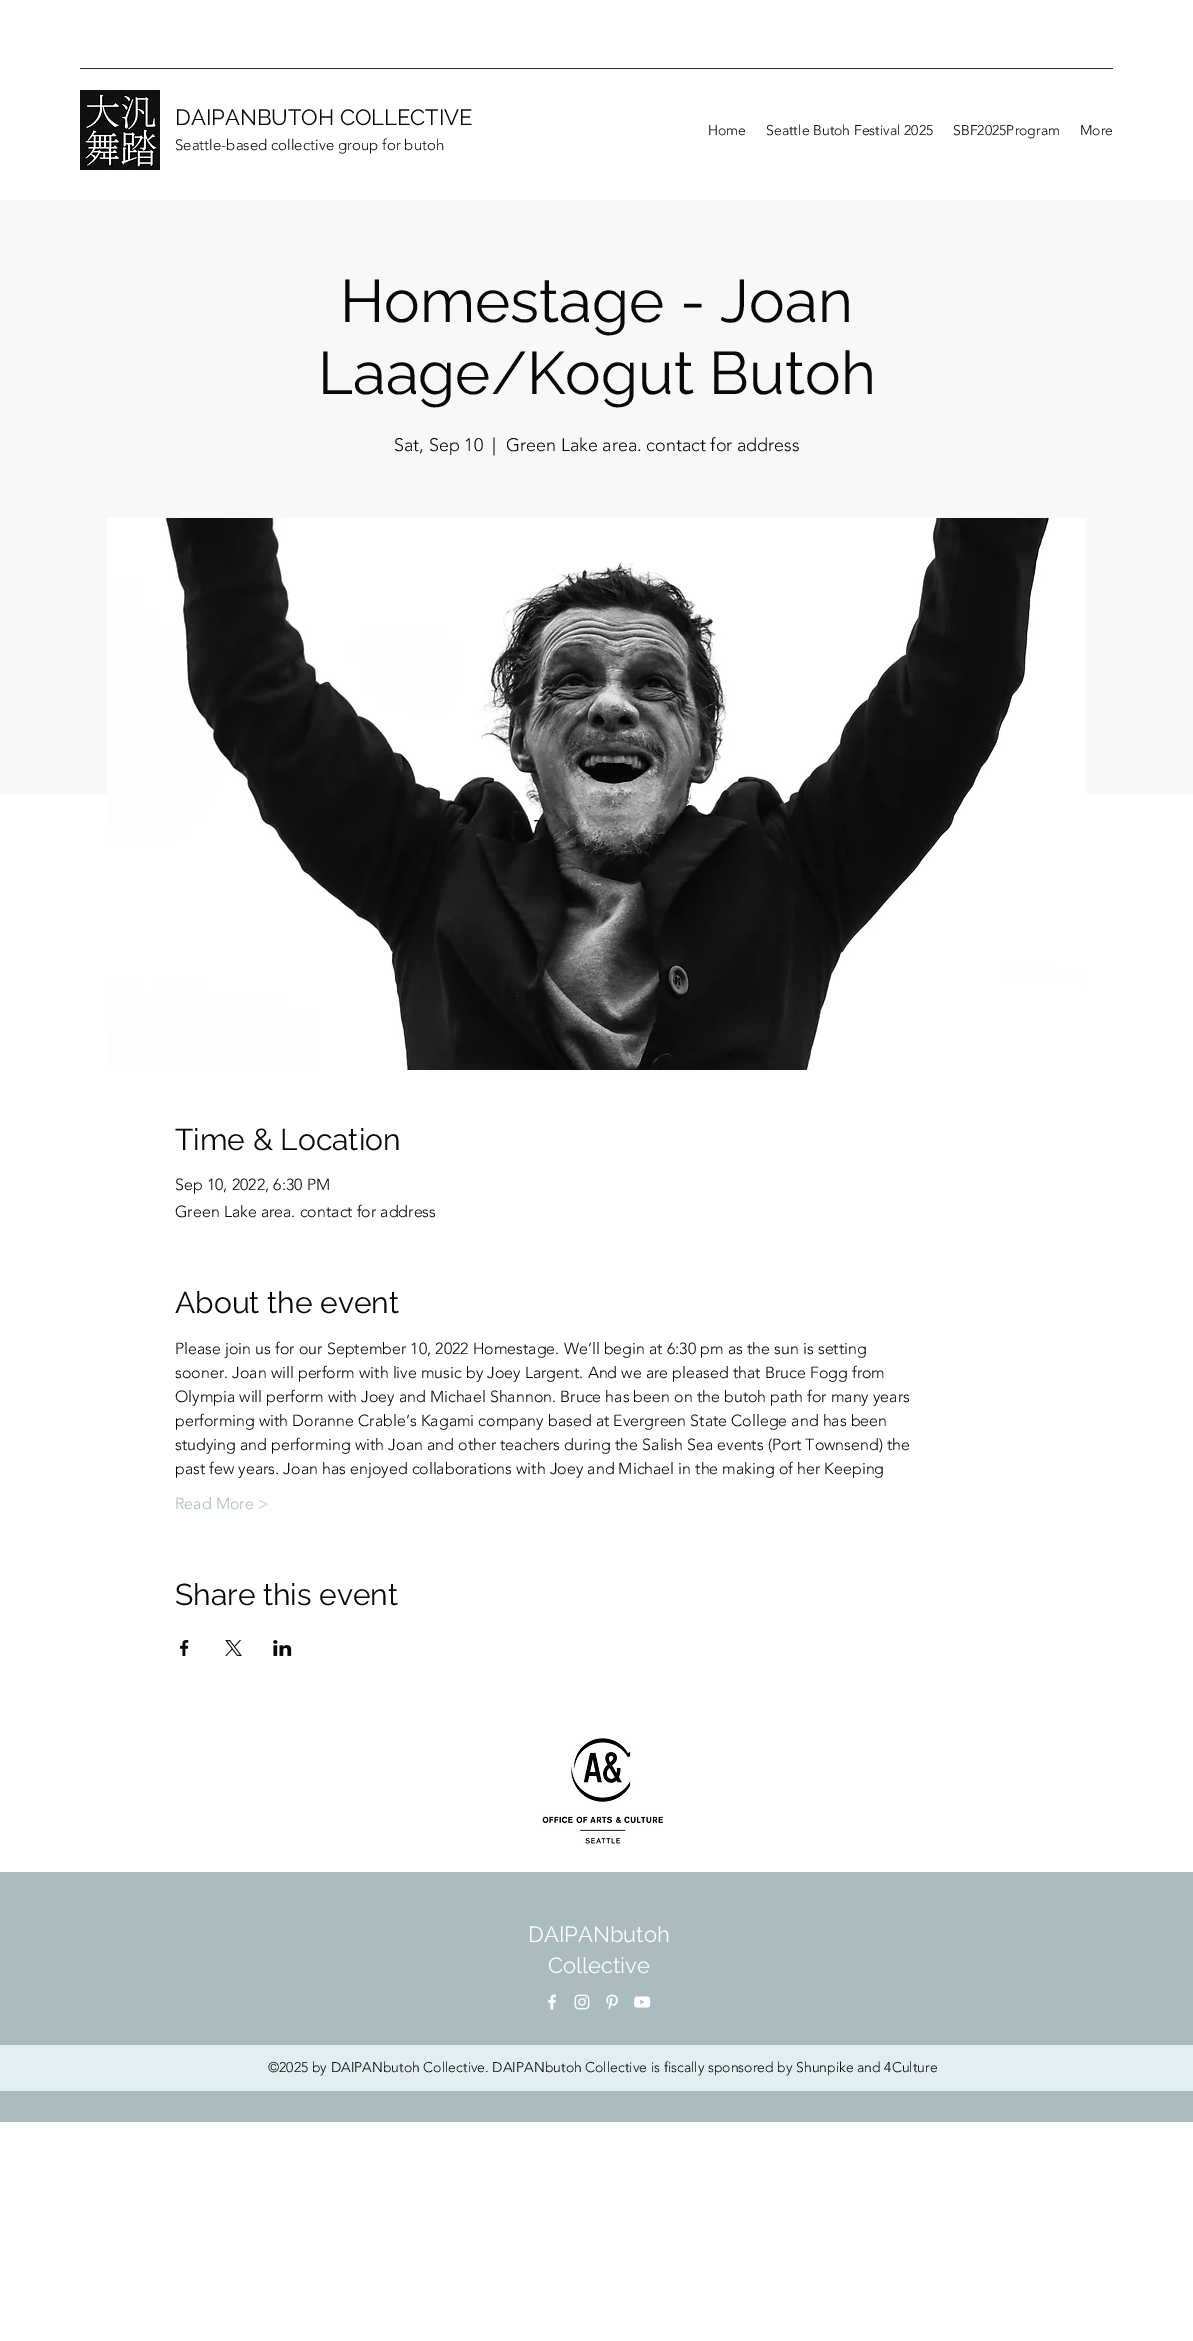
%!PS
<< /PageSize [1193 2341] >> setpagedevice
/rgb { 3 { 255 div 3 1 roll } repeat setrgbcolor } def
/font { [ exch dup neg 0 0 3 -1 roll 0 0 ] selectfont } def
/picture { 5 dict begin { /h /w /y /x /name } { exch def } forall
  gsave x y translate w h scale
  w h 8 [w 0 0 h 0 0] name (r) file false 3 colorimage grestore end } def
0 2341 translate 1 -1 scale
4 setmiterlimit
255 255 255 rgb
0 0 1193 2341 rectfill
46 46 46 rgb
80 68 1033 1 rectfill
(img/1.rgb) 80 90 80 80 picture
247 249 249 rgb
0 200 1193 594 rectfill
(img/2.rgb) 107 518 979 552 picture
(img/3.rgb) 180 1640 9 16 picture
(img/4.rgb) 225 1640 17 16 picture
(img/5.rgb) 273 1640 19 16 picture
(img/6.rgb) 542 1738 121 106 picture
170 188 191 rgb
0 1872 1193 250 rectfill
(img/7.rgb) 548 1994 8 16 picture
(img/8.rgb) 574 1994 16 16 picture
(img/9.rgb) 606 1994 13 16 picture
(img/10.rgb) 633 1996 18 12 picture
225 239 242 rgb
0 2045 1193 46 rectfill
/Raleway-Regular 22 font
9 9 9 rgb
175 125 moveto (DAIPANBUTOH COLLECTIVE) show
/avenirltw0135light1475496-Light 15 font
175 150 moveto (Seattle-based collective group for butoh) show
/avenirltw0135light1475496-Light 14 font
[
  [(Home) 708 135]
  [(Seattle Butoh Festival 2025) 766 135]
  [(SBF2025Program) 953 135]
  [(More) 1080 135]
] { aload pop moveto show } forall
/Raleway-Regular 60 font
340 322 moveto (Homestage - Joan) show
318 394 moveto (Laage/Kogut Butoh) show
/avenirltw0135light1475496-Light 18 font
[
  [(Sat, Sep 10) 394 451]
  [(|) 492 451]
  [(Green Lake area. contact for address) 506 451]
] { aload pop moveto show } forall
/Raleway-Regular 30 font
175 1150 moveto (Time & Location) show
/avenirltw0135light1475496-Light 16 font
175 1190 moveto (Sep 10, 2022, 6:30 PM) show
175 1217 moveto (Green Lake area. contact for address) show
/Raleway-Regular 30 font
175 1313 moveto (About the event) show
/avenirltw0135light1475496-Light 16 font
[
  [(Please join us for our September 10, 2022 Homestage. We’ll begin at 6:30 pm as the sun is setting) 175 1354]
  [(sooner. Joan will perform with live music by Joey Largent. And we are pleased that Bruce Fogg from) 175 1378]
  [(Olympia will perform with Joey and Michael Shannon. Bruce has been on the butoh path for many years) 175 1402]
  [(performing with Doranne Crable’s Kagami company based at Evergreen State College and has been) 175 1426]
  [(studying and performing with Joan and other teachers during the Salish Sea events \(Port Townsend\) the) 175 1450]
  [(past few years. Joan has enjoyed collaborations with Joey and Michael in the making of her Keeping) 175 1474]
] { aload pop moveto show } forall
170 188 191 rgb
175 1509 moveto (Read More >) show
/Raleway-Regular 30 font
9 9 9 rgb
175 1605 moveto (Share this event) show
/Raleway-Regular 22 font
255 255 255 rgb
528 1942 moveto (DAIPANbutoh) show
548 1973 moveto (Collective) show
/avenirltw0135light1475496-Light 14 font
9 9 9 rgb
268 2072 moveto (©2025 by DAIPANbutoh Collective. DAIPANbutoh Collective is fiscally sponsored by Shunpike and 4Culture) show
showpage
